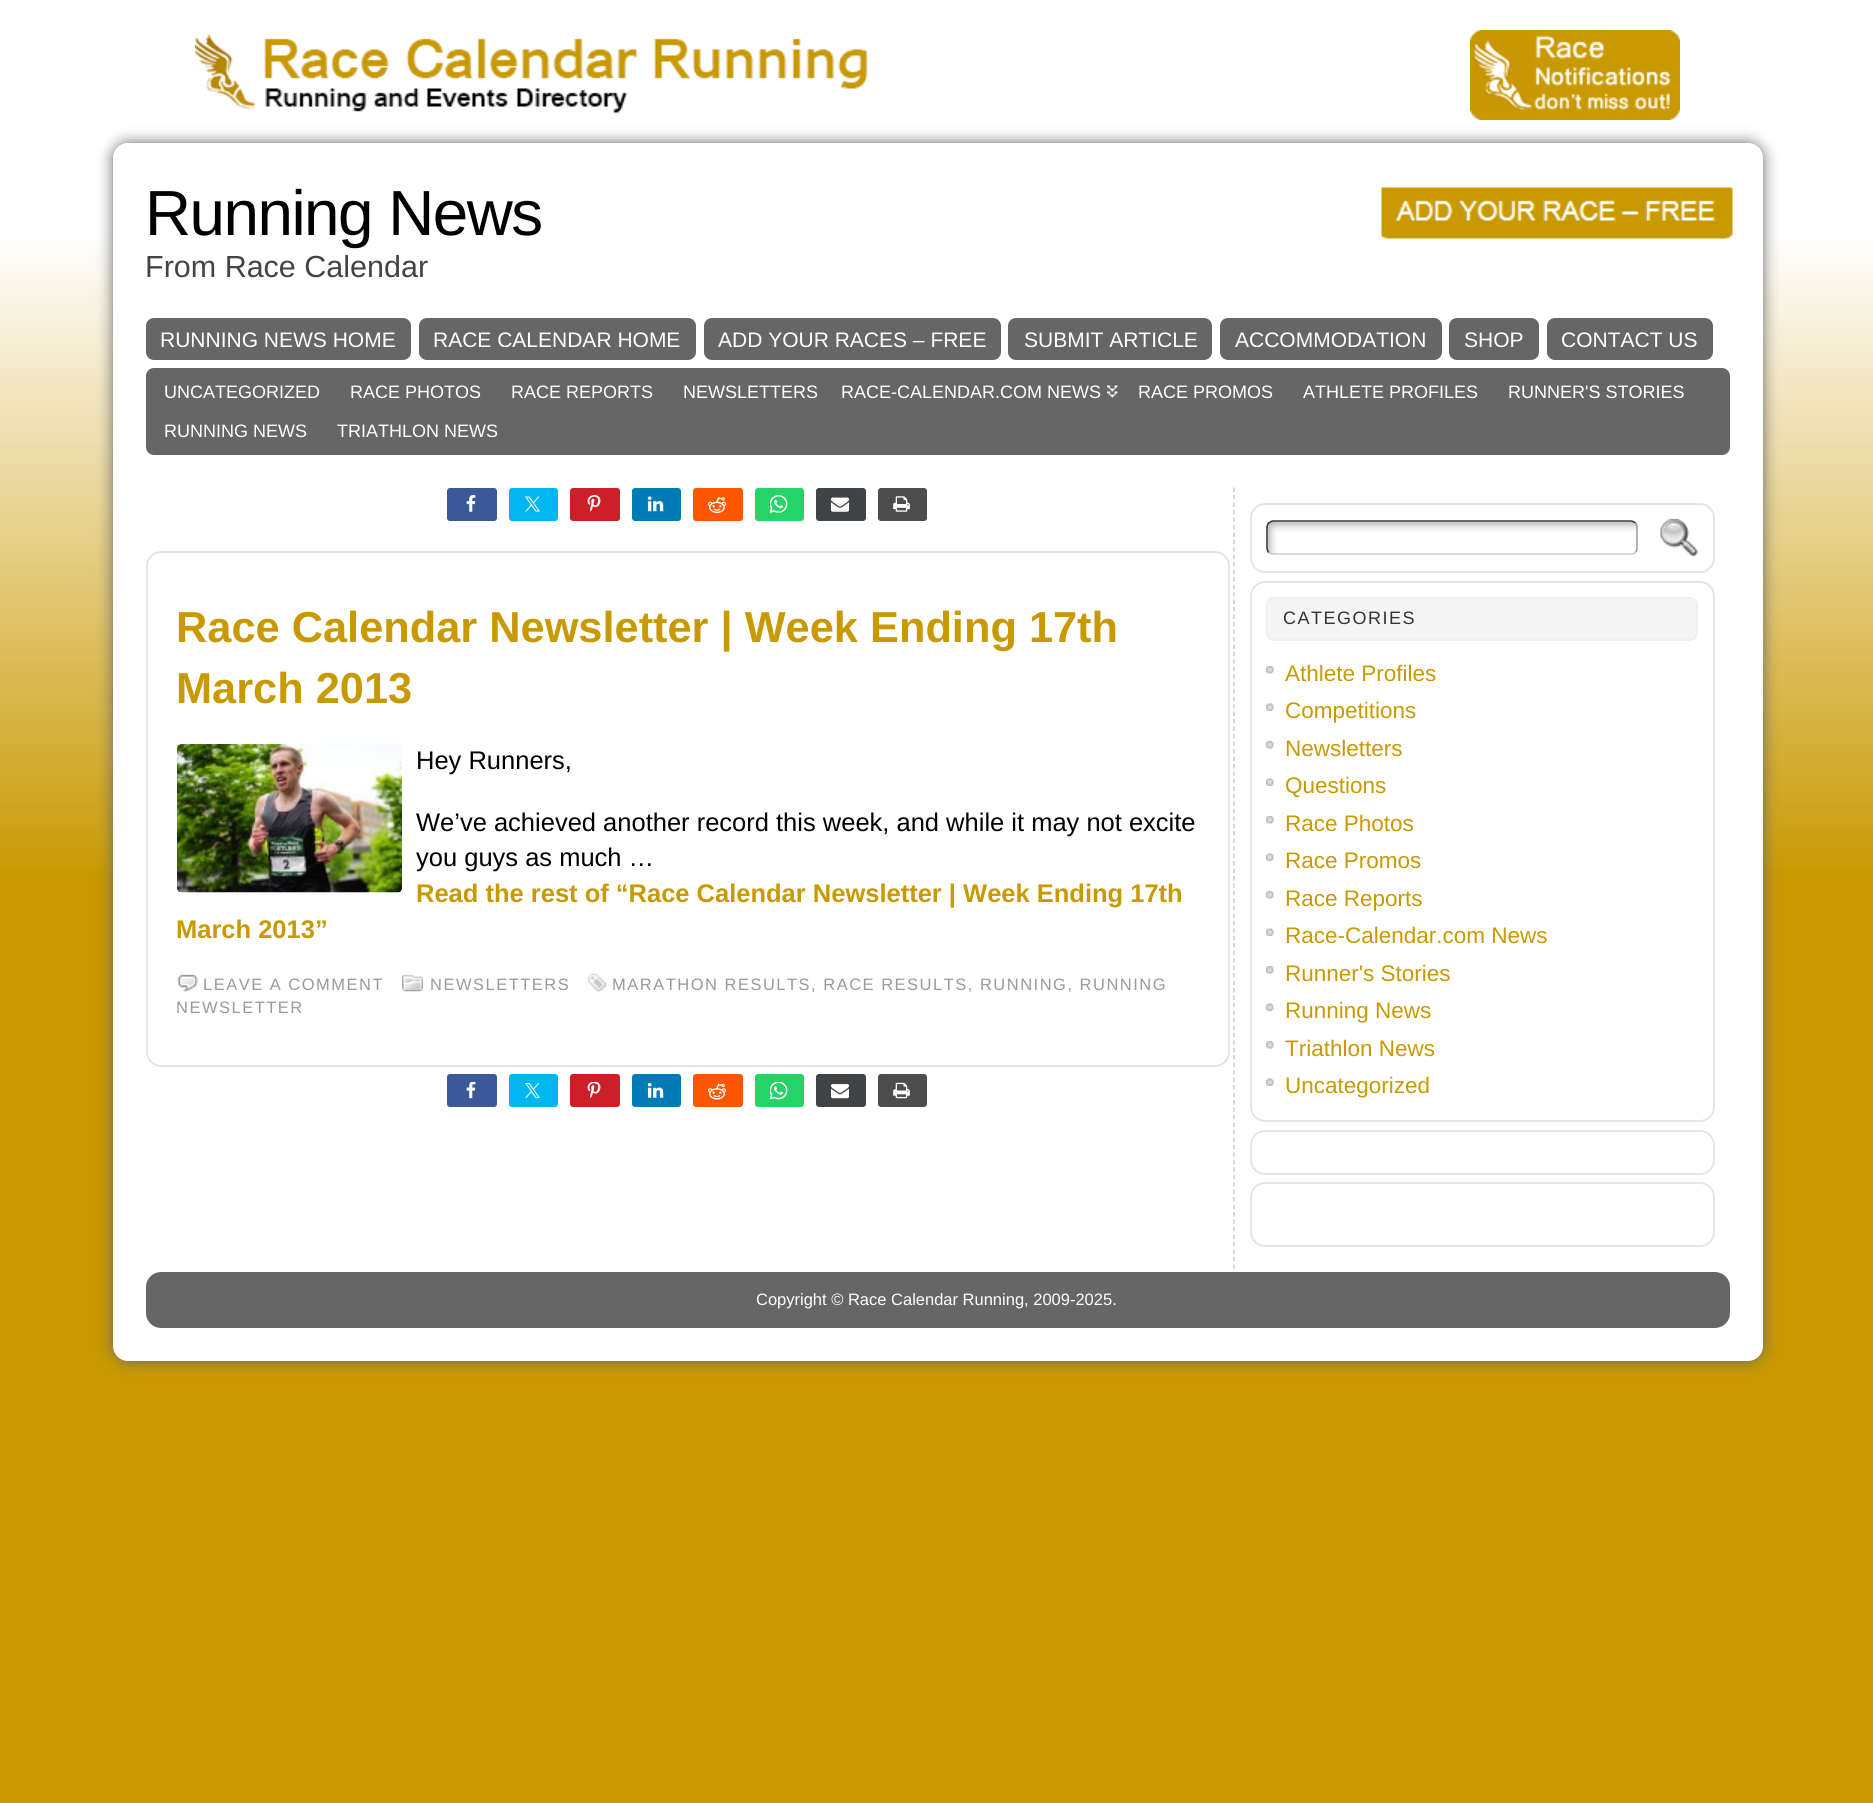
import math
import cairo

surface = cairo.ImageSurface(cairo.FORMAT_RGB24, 1873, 1803)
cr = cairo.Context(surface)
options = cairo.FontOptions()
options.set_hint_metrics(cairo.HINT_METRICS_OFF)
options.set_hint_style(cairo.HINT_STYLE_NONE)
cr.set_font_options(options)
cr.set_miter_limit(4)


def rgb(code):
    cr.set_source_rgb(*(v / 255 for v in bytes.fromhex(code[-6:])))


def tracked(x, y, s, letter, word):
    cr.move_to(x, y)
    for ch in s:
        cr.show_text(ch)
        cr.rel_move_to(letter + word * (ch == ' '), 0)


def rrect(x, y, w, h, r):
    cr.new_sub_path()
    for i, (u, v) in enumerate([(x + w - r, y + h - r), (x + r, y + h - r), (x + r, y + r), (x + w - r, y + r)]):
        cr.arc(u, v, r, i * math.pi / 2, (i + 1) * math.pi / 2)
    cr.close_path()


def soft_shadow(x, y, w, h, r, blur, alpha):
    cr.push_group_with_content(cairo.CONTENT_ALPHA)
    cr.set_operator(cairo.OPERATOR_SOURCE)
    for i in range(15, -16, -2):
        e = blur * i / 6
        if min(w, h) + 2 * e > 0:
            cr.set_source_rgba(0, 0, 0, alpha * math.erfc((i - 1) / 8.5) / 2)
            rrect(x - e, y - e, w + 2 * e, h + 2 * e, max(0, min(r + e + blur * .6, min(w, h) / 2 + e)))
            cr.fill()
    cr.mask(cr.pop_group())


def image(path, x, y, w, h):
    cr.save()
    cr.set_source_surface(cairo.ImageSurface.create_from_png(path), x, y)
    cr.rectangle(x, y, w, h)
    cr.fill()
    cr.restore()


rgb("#c99902")
cr.paint()
image("img/1.png", 0, 0, 1873, 871)
image("img/2.png", 195, 34, 673, 79)
image("img/3.png", 1470, 30, 210, 90)
rgb("#666666")
soft_shadow(113, 143, 1650, 1218, 15, 7.5, 1)
rgb("#ffffff")
rrect(113, 143, 1650, 1218, 15)
cr.fill()
image("img/4.png", 1381, 187, 352, 52)
rgb("#666666")
rrect(146, 318, 265, 42, 8)
cr.fill()
rrect(419, 318, 277, 42, 8)
cr.fill()
rrect(704, 318, 297, 42, 8)
cr.fill()
rrect(1008, 318, 204, 42, 8)
cr.fill()
rrect(1220, 318, 222, 42, 8)
cr.fill()
rrect(1449, 318, 90, 42, 8)
cr.fill()
rrect(1547, 318, 166, 42, 8)
cr.fill()
rrect(146, 368, 1584, 87, 8)
cr.fill()
image("img/5.png", 1107, 385, 11, 13)
rgb("#3b5998")
rrect(447, 488, 50, 33, 3)
cr.fill()
image("img/6.png", 466, 495, 10, 17)
rgb("#00b6f1")
rrect(509, 488, 49, 33, 3)
cr.fill()
image("img/7.png", 525, 496, 15, 16)
rgb("#cb2027")
rrect(570, 488, 50, 33, 3)
cr.fill()
image("img/8.png", 587, 495, 14, 17)
rgb("#007bb6")
rrect(632, 488, 49, 33, 3)
cr.fill()
image("img/9.png", 647, 496, 17, 16)
rgb("#ff5700")
rrect(693, 488, 50, 33, 3)
cr.fill()
image("img/10.png", 708, 497, 18, 16)
rgb("#25d366")
rrect(755, 488, 49, 33, 3)
cr.fill()
image("img/11.png", 770, 495, 18, 18)
rgb("#424345")
rrect(816, 488, 50, 33, 3)
cr.fill()
image("img/12.png", 831, 497, 18, 15)
rgb("#4d4d4d")
rrect(878, 488, 49, 33, 3)
cr.fill()
image("img/13.png", 893, 496, 17, 16)
rrect(147, 552, 1082, 514, 14)
rgb("#e5e5e5")
cr.stroke()
image("img/14.png", 177, 744, 225, 149)
image("img/15.png", 177, 974, 21, 18)
image("img/16.png", 402, 974, 21, 18)
image("img/17.png", 588, 973, 18, 19)
rgb("#3b5998")
rrect(447, 1074, 50, 33, 3)
cr.fill()
image("img/18.png", 466, 1082, 10, 17)
rgb("#00b6f1")
rrect(509, 1074, 49, 33, 3)
cr.fill()
image("img/19.png", 525, 1083, 15, 15)
rgb("#cb2027")
rrect(570, 1074, 50, 33, 3)
cr.fill()
image("img/20.png", 587, 1082, 14, 17)
rgb("#007bb6")
rrect(632, 1074, 49, 33, 3)
cr.fill()
image("img/21.png", 647, 1083, 17, 15)
rgb("#ff5700")
rrect(693, 1074, 50, 33, 3)
cr.fill()
image("img/22.png", 708, 1083, 18, 17)
rgb("#25d366")
rrect(755, 1074, 49, 33, 3)
cr.fill()
image("img/23.png", 770, 1082, 18, 18)
rgb("#424345")
rrect(816, 1074, 50, 33, 3)
cr.fill()
image("img/24.png", 831, 1084, 18, 15)
rgb("#4d4d4d")
rrect(878, 1074, 49, 33, 3)
cr.fill()
image("img/25.png", 893, 1082, 17, 17)
cr.new_path()
cr.move_to(1234, 487.5)
cr.line_to(1234, 1269)
rgb("#cccccc")
cr.set_line_width(1.5)
cr.set_dash([4.5, 2.97])
cr.stroke()
rrect(1251, 504, 463, 68, 14)
rgb("#e5e5e5")
cr.set_line_width(2)
cr.set_dash([])
cr.stroke()
image("img/26.png", 1267, 522, 371, 33)
cr.new_path()
cr.move_to(1635.5, 523)
cr.curve_to(1636.5, 524.5, 1637, 526, 1637, 528)
cr.line_to(1637, 547.5)
cr.curve_to(1637, 549.5, 1636.5, 551, 1635.5, 552.5)
rgb("#999999")
cr.set_line_width(1.5)
cr.stroke()
cr.new_path()
cr.move_to(1635.5, 552.5)
cr.curve_to(1634, 553.5, 1632.5, 554, 1630.5, 554)
cr.line_to(1273.5, 554)
cr.curve_to(1271.5, 554, 1270, 553.5, 1268.5, 552.5)
rgb("#cccccc")
cr.stroke()
cr.new_path()
cr.move_to(1268.5, 552.5)
cr.curve_to(1267.5, 551, 1267, 549.5, 1267, 547.5)
cr.line_to(1267, 528)
cr.curve_to(1267, 526, 1267.5, 524.5, 1268.5, 523)
cr.curve_to(1270, 522, 1271.5, 521, 1273.5, 521)
cr.line_to(1630.5, 521)
cr.curve_to(1632.5, 521, 1634, 522, 1635.5, 523)
rgb("#333333")
cr.stroke()
image("img/27.png", 1660, 519, 38, 38)
rrect(1251, 582, 463, 539, 14)
rgb("#e5e5e5")
cr.set_line_width(2)
cr.stroke()
rgb("#f5f5f5")
rrect(1267, 598, 430, 42, 7)
cr.fill_preserve()
rgb("#f0f0f0")
cr.stroke()
image("img/28.png", 1266, 666, 8, 8)
image("img/29.png", 1266, 703, 8, 8)
image("img/28.png", 1266, 741, 8, 8)
image("img/29.png", 1266, 778, 8, 8)
image("img/28.png", 1266, 816, 8, 8)
image("img/29.png", 1266, 853, 8, 8)
image("img/28.png", 1266, 891, 8, 8)
image("img/29.png", 1266, 928, 8, 8)
image("img/28.png", 1266, 966, 8, 8)
image("img/29.png", 1266, 1003, 8, 8)
image("img/28.png", 1266, 1041, 8, 8)
image("img/29.png", 1266, 1078, 8, 8)
rrect(1251, 1131, 463, 43, 14)
rgb("#e5e5e5")
cr.stroke()
rrect(1251, 1183, 463, 63, 14)
cr.stroke()
rgb("#666666")
rrect(147, 1273, 1582, 54, 14)
cr.fill_preserve()
cr.stroke()
cr.select_font_face("Liberation Sans")
cr.set_font_size(63.75)
rgb("#000000")
tracked(145, 235, "Running News", -1.5, 0)
cr.set_font_size(30.5)
rgb("#444444")
cr.move_to(145, 277)
cr.show_text("From Race Calendar")
cr.set_font_size(21)
rgb("#ffffff")
for x, y, s in [
    (160, 347, "RUNNING NEWS HOME"),
    (433, 347, "RACE CALENDAR HOME"),
    (718, 347, "ADD YOUR RACES – FREE"),
    (1024, 347, "SUBMIT ARTICLE"),
    (1235, 347, "ACCOMMODATION"),
    (1464, 347, "SHOP"),
    (1561, 347, "CONTACT US"),
]:
    cr.move_to(x, y)
    cr.show_text(s)
cr.set_font_size(18)
for x, y, s in [
    (164, 398, "UNCATEGORIZED"),
    (350, 398, "RACE PHOTOS"),
    (511, 398, "RACE REPORTS"),
    (683, 398, "NEWSLETTERS"),
    (841, 398, "RACE-CALENDAR.COM NEWS"),
    (1138, 398, "RACE PROMOS"),
    (1303, 398, "ATHLETE PROFILES"),
    (1508, 398, "RUNNER'S STORIES"),
    (164, 437, "RUNNING NEWS"),
    (337, 437, "TRIATHLON NEWS"),
]:
    cr.move_to(x, y)
    cr.show_text(s)
cr.select_font_face("Liberation Sans", cairo.FONT_SLANT_NORMAL, cairo.FONT_WEIGHT_BOLD)
cr.set_font_size(43.35)
rgb("#c99902")
cr.move_to(176, 642)
cr.show_text("Race Calendar Newsletter | Week Ending 17th")
cr.move_to(176, 703)
cr.show_text("March 2013")
cr.select_font_face("Liberation Sans")
cr.set_font_size(25.5)
rgb("#000000")
for x, y, s in [
    (416, 769, "Hey Runners,"),
    (416, 831, "We’ve achieved another record this week, and while it may not excite"),
    (416, 866, "you guys as much …"),
]:
    cr.move_to(x, y)
    cr.show_text(s)
cr.select_font_face("Liberation Sans", cairo.FONT_SLANT_NORMAL, cairo.FONT_WEIGHT_BOLD)
rgb("#c99902")
cr.move_to(416, 902)
cr.show_text("Read the rest of “Race Calendar Newsletter | Week Ending 17th")
cr.move_to(176, 938)
cr.show_text("March 2013”")
cr.select_font_face("Liberation Sans")
cr.set_font_size(16.5)
rgb("#999999")
for x, y, s in [
    (203, 990, "LEAVE A COMMENT"),
    (430, 990, "NEWSLETTERS"),
    (612, 990, "MARATHON RESULTS, RACE RESULTS, RUNNING, RUNNING"),
    (176, 1013, "NEWSLETTER"),
]:
    tracked(x, y, s, 1.5, 0)
cr.set_font_size(18)
rgb("#333333")
tracked(1283, 624, "CATEGORIES", 1.5, 0)
cr.set_font_size(22.5)
rgb("#c99902")
for x, y, s in [
    (1285, 681, "Athlete Profiles"),
    (1285, 718, "Competitions"),
    (1285, 756, "Newsletters"),
    (1285, 793, "Questions"),
    (1285, 831, "Race Photos"),
    (1285, 868, "Race Promos"),
    (1285, 906, "Race Reports"),
    (1285, 943, "Race-Calendar.com News"),
    (1285, 981, "Runner's Stories"),
    (1285, 1018, "Running News"),
    (1285, 1056, "Triathlon News"),
    (1285, 1093, "Uncategorized"),
]:
    cr.move_to(x, y)
    cr.show_text(s)
cr.set_font_size(16.5)
rgb("#ffffff")
cr.move_to(756, 1305)
cr.show_text("Copyright © Race Calendar Running, 2009-2025.")
surface.write_to_png("page.png")
